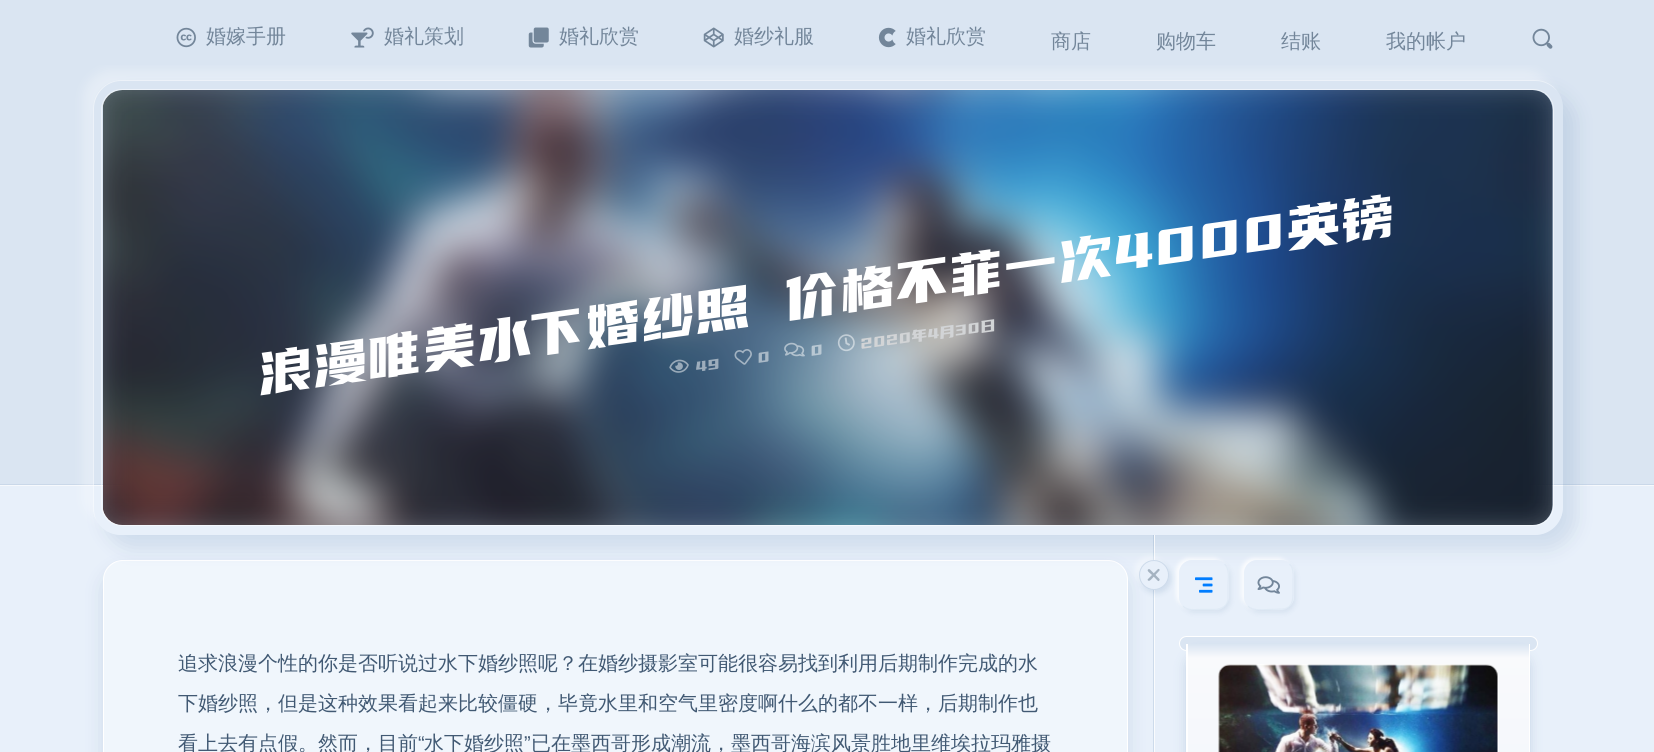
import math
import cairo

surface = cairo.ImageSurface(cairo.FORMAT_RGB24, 1654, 752)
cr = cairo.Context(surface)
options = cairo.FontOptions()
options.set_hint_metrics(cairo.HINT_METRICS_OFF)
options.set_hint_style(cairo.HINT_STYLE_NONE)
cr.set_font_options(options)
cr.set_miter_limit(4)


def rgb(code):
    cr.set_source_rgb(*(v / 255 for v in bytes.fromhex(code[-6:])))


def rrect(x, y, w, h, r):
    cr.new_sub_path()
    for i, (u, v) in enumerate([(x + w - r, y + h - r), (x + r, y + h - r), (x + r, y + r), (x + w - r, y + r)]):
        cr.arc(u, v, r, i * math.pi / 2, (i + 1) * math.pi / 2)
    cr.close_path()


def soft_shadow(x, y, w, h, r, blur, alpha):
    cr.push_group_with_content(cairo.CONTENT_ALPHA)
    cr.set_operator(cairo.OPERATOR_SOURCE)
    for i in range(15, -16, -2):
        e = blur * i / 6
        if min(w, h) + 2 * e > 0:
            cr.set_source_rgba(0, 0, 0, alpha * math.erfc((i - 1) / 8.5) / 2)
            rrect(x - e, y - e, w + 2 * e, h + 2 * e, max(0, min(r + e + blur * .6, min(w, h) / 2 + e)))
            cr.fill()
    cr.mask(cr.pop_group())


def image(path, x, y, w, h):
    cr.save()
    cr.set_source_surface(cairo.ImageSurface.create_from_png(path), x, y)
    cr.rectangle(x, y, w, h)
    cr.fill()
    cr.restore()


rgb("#dae5f2")
cr.paint()
image("img/1.png", 176, 27, 20, 21)
image("img/2.png", 351, 27, 23, 21)
image("img/3.png", 528, 27, 21, 21)
image("img/4.png", 703, 27, 21, 21)
image("img/5.png", 878, 27, 18, 21)
image("img/6.png", 1532, 28, 21, 21)
for x, y, w, h, color in [
    (0, 484, 1654, 1, "#cad8e9"),
    (0, 486, 1654, 266, "#e8f0fa"),
    (0, 485, 1654, 1, "#f6f9fd"),
]:
    rgb(color)
    cr.rectangle(x, y, w, h)
    cr.fill()
image("img/7.png", 103, 90, 1450, 435)
rgb("#366498")
soft_shadow(103, 570, 1025, 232, 20, 10, 0.15)
rgb("#f0f6fc")
rrect(103.5, 560.5, 1024, 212, 19.5)
cr.fill_preserve()
rgb("#ffffff")
cr.set_line_width(1)
cr.stroke()
cr.save()
cr.set_fill_rule(cairo.FILL_RULE_EVEN_ODD)
cr.new_path()
cr.move_to(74, 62)
cr.line_to(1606, 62)
cr.line_to(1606, 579)
cr.line_to(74, 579)
cr.close_path()
cr.move_to(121, 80)
cr.line_to(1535, 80)
cr.curve_to(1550.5, 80, 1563, 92.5, 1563, 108)
cr.line_to(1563, 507)
cr.curve_to(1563, 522.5, 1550.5, 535, 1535, 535)
cr.line_to(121, 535)
cr.curve_to(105.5, 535, 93, 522.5, 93, 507)
cr.line_to(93, 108)
cr.curve_to(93, 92.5, 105.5, 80, 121, 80)
cr.close_path()
cr.clip()
rgb("#366498")
soft_shadow(105, 93, 1470, 455, 28, 10, 0.15)
cr.restore()
cr.save()
cr.rectangle(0, 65, 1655, 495)
cr.clip()
cr.set_fill_rule(cairo.FILL_RULE_EVEN_ODD)
cr.new_path()
cr.move_to(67, 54)
cr.line_to(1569, 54)
cr.line_to(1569, 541)
cr.line_to(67, 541)
cr.close_path()
cr.move_to(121, 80)
cr.line_to(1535, 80)
cr.curve_to(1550.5, 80, 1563, 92.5, 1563, 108)
cr.line_to(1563, 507)
cr.curve_to(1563, 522.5, 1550.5, 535, 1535, 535)
cr.line_to(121, 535)
cr.curve_to(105.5, 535, 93, 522.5, 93, 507)
cr.line_to(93, 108)
cr.curve_to(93, 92.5, 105.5, 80, 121, 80)
cr.close_path()
cr.clip()
rgb("#ffffff")
soft_shadow(83, 70, 1470, 455, 28, 5, 0.3)
cr.restore()
cr.set_source_rgba(1, 1, 1, 0.5)
cr.new_path()
cr.move_to(121, 81)
cr.line_to(1536, 81)
cr.curve_to(1545, 81, 1553, 86, 1558, 92)
cr.curve_to(1553, 85, 1545, 80, 1535, 80)
cr.line_to(121, 80)
cr.curve_to(106, 80, 93, 93, 93, 108)
cr.line_to(93, 507)
cr.curve_to(93, 512, 94, 517, 97, 521)
cr.curve_to(95, 518, 94, 513, 94, 509)
cr.line_to(94, 109)
cr.curve_to(94, 94, 106, 81, 121, 81)
cr.close_path()
cr.fill()
rrect(101.5, 89.5, 1452, 436, 20.5)
cr.stroke()
cr.set_source_rgba(0.212, 0.392, 0.596, 0.2)
rrect(103, 90, 1450, 435, 20)
cr.fill()
cr.set_source_rgba(1, 1, 1, 0.8)
cr.rectangle(1154, 535, 1, 217)
cr.fill()
cr.set_source_rgba(0.212, 0.392, 0.596, 0.15)
cr.rectangle(1153, 535, 1, 217)
cr.fill()
rgb("#366498")
soft_shadow(1141, 563, 30, 30, 15, 3, 0.15)
rgb("#ffffff")
soft_shadow(1135, 556, 30, 30, 15, 2.5, 0.35)
rgb("#e8f0fa")
cr.arc(1154, 575, 15, 0, 2 * math.pi)
cr.fill()
cr.arc(1154, 575, 14.5, 0, 2 * math.pi)
cr.set_source_rgba(0.212, 0.392, 0.596, 0.15)
cr.stroke()
rgb("#a5b3c1")
cr.new_path()
cr.move_to(1150, 569.5)
cr.line_to(1159.5, 579)
cr.curve_to(1160, 580, 1159, 581.5, 1158, 581)
cr.line_to(1151.5, 574.5)
cr.curve_to(1150.5, 573.5, 1146.5, 571, 1148, 569.5)
cr.curve_to(1148.5, 569, 1149.5, 569, 1150, 569.5)
cr.close_path()
cr.fill()
cr.new_path()
cr.move_to(1148, 579)
cr.line_to(1158, 569)
cr.curve_to(1159, 568.5, 1160, 569.5, 1159.5, 570.5)
cr.line_to(1153, 577.5)
cr.curve_to(1152.5, 578, 1149.5, 582, 1148, 580.5)
cr.curve_to(1147.5, 580, 1147.5, 579.5, 1148, 579)
cr.close_path()
cr.fill()
cr.save()
cr.set_fill_rule(cairo.FILL_RULE_EVEN_ODD)
cr.new_path()
cr.move_to(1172, 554)
cr.line_to(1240, 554)
cr.line_to(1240, 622)
cr.line_to(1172, 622)
cr.close_path()
cr.move_to(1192, 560)
cr.line_to(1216, 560)
cr.curve_to(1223, 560, 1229, 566, 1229, 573)
cr.line_to(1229, 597)
cr.curve_to(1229, 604, 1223, 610, 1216, 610)
cr.line_to(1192, 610)
cr.curve_to(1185, 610, 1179, 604, 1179, 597)
cr.line_to(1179, 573)
cr.curve_to(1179, 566, 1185, 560, 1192, 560)
cr.close_path()
cr.clip()
rgb("#366498")
soft_shadow(1181, 563, 50, 50, 13, 2.5, 0.1)
cr.restore()
cr.save()
cr.set_fill_rule(cairo.FILL_RULE_EVEN_ODD)
cr.new_path()
cr.move_to(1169, 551)
cr.line_to(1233, 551)
cr.line_to(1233, 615)
cr.line_to(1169, 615)
cr.close_path()
cr.move_to(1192, 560)
cr.line_to(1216, 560)
cr.curve_to(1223, 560, 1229, 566, 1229, 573)
cr.line_to(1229, 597)
cr.curve_to(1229, 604, 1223, 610, 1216, 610)
cr.line_to(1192, 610)
cr.curve_to(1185, 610, 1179, 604, 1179, 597)
cr.line_to(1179, 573)
cr.curve_to(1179, 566, 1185, 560, 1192, 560)
cr.close_path()
cr.clip()
rgb("#ffffff")
soft_shadow(1176, 558, 50, 50, 13, 2, 0.8)
cr.restore()
cr.new_path()
cr.move_to(1224.5, 564)
cr.curve_to(1230, 569.5, 1228, 578.5, 1228, 585)
cr.line_to(1228, 600)
cr.curve_to(1226, 608, 1219.5, 609.5, 1212, 609.5)
cr.line_to(1199.5, 609.5)
cr.curve_to(1193.5, 609.5, 1187.5, 610.5, 1183, 606)
cr.set_source_rgba(0.212, 0.392, 0.596, 0.05)
cr.set_line_width(1.2)
cr.stroke()
image("img/12.png", 1195, 577, 18, 16)
cr.save()
cr.set_fill_rule(cairo.FILL_RULE_EVEN_ODD)
cr.new_path()
cr.move_to(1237, 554)
cr.line_to(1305, 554)
cr.line_to(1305, 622)
cr.line_to(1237, 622)
cr.close_path()
cr.move_to(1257, 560)
cr.line_to(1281, 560)
cr.curve_to(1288, 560, 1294, 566, 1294, 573)
cr.line_to(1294, 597)
cr.curve_to(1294, 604, 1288, 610, 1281, 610)
cr.line_to(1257, 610)
cr.curve_to(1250, 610, 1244, 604, 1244, 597)
cr.line_to(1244, 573)
cr.curve_to(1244, 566, 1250, 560, 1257, 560)
cr.close_path()
cr.clip()
rgb("#366498")
soft_shadow(1246, 563, 50, 50, 13, 2.5, 0.1)
cr.restore()
cr.save()
cr.set_fill_rule(cairo.FILL_RULE_EVEN_ODD)
cr.new_path()
cr.move_to(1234, 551)
cr.line_to(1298, 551)
cr.line_to(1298, 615)
cr.line_to(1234, 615)
cr.close_path()
cr.move_to(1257, 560)
cr.line_to(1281, 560)
cr.curve_to(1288, 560, 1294, 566, 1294, 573)
cr.line_to(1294, 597)
cr.curve_to(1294, 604, 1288, 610, 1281, 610)
cr.line_to(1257, 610)
cr.curve_to(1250, 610, 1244, 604, 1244, 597)
cr.line_to(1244, 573)
cr.curve_to(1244, 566, 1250, 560, 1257, 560)
cr.close_path()
cr.clip()
rgb("#ffffff")
soft_shadow(1241, 558, 50, 50, 13, 2, 0.8)
cr.restore()
cr.new_path()
cr.move_to(1289.5, 564)
cr.curve_to(1294, 568.5, 1293, 575, 1293, 581)
cr.line_to(1293, 593.5)
cr.curve_to(1293, 600.5, 1292, 607.5, 1283.5, 609)
cr.line_to(1269, 609.5)
cr.curve_to(1262, 609.5, 1253, 611, 1248, 606)
cr.stroke()
image("img/13.png", 1257, 576, 23, 18)
rgb("#dae5f2")
rrect(1179.5, 636.5, 358, 14, 7)
cr.fill_preserve()
rgb("#ffffff")
cr.set_line_width(1)
cr.stroke()
rgb("#366498")
soft_shadow(1186, 654, 344, 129, 13, 6, 0.2)
gradient = cairo.LinearGradient(1358, 644, 1358, 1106)
gradient.add_color_stop_rgba(0, 0.855, 0.898, 0.949, 1)
gradient.add_color_stop_rgba(0.03, 0.976, 0.98, 0.988, 1)
gradient.add_color_stop_rgba(0.96, 0.91, 0.941, 0.98, 1)
gradient.add_color_stop_rgba(1, 0.855, 0.898, 0.949, 1)
cr.set_source(gradient)
cr.rectangle(1188, 644, 341, 108)
cr.fill()
rgb("#ffffff")
cr.set_fill_rule(cairo.FILL_RULE_EVEN_ODD)
cr.new_path()
cr.move_to(1186, 644)
cr.line_to(1530, 644)
cr.line_to(1530, 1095)
cr.curve_to(1530, 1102, 1524, 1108, 1518, 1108)
cr.line_to(1199, 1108)
cr.curve_to(1192, 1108, 1186, 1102, 1186, 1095)
cr.close_path()
cr.move_to(1188, 644)
cr.line_to(1529, 644)
cr.line_to(1529, 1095)
cr.curve_to(1529, 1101, 1524, 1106, 1518, 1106)
cr.line_to(1199, 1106)
cr.curve_to(1193, 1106, 1188, 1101, 1188, 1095)
cr.close_path()
cr.fill()
rrect(1218.5, 664.5, 280, 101, 12.5)
cr.stroke()
image("img/14.png", 1218, 664, 280, 88)
cr.select_font_face("WenQuanYi Zen Hei Medium")
cr.set_font_size(20)
rgb("#73869a")
for x, y, s in [
    (206, 43, "婚嫁手册"),
    (384, 43, "婚礼策划"),
    (559, 43, "婚礼欣赏"),
    (734, 43, "婚纱礼服"),
    (906, 43, "婚礼欣赏"),
    (1051, 48, "商店"),
    (1156, 48, "购物车"),
    (1281, 48, "结账"),
    (1386, 48, "我的帐户"),
]:
    cr.move_to(x, y)
    cr.show_text(s)
cr.select_font_face("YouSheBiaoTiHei")
cr.set_font_size(60)
rgb("#ffffff")
cr.save()
cr.translate(260, 395)
cr.rotate(-8 * math.pi / 180)
cr.move_to(0, 0)
cr.show_text("浪漫唯美水下婚纱照 价格不菲一次4000英镑")
cr.restore()
image("img/8.png", 669, 359, 20, 14)
cr.set_font_size(17.5)
rgb("#9dadbc")
cr.save()
cr.translate(696, 373)
cr.rotate(-8 * math.pi / 180)
cr.move_to(0, 0)
cr.show_text("49")
cr.restore()
image("img/9.png", 734, 349, 18, 16)
rgb("#a9b9c7")
cr.save()
cr.translate(758, 364)
cr.rotate(-8 * math.pi / 180)
cr.move_to(0, 0)
cr.show_text("0")
cr.restore()
image("img/10.png", 784, 342, 21, 15)
rgb("#b9c8d3")
cr.save()
cr.translate(811, 357)
cr.rotate(-8 * math.pi / 180)
cr.move_to(0, 0)
cr.show_text("0")
cr.restore()
image("img/11.png", 837, 334, 18, 18)
rgb("#d2d4d6")
cr.save()
cr.translate(861, 350)
cr.rotate(-8 * math.pi / 180)
cr.move_to(0, 0)
cr.show_text("2020年4月30日")
cr.restore()
cr.select_font_face("WenQuanYi Zen Hei Medium")
cr.set_font_size(20)
rgb("#415973")
for x, y, s in [
    (178, 670, "追求浪漫个性的你是否听说过水下婚纱照呢？在婚纱摄影室可能很容易找到利用后期制作完成的水"),
    (178, 710, "下婚纱照，但是这种效果看起来比较僵硬，毕竟水里和空气里密度啊什么的都不一样，后期制作也"),
    (178, 750, "看上去有点假。然而，目前"),
]:
    cr.move_to(x, y)
    cr.show_text(s)
cr.select_font_face("Liberation Sans")
cr.move_to(418, 750)
cr.show_text("“")
cr.select_font_face("WenQuanYi Zen Hei Medium")
cr.move_to(424, 750)
cr.show_text("水下婚纱照")
cr.select_font_face("Liberation Sans")
cr.move_to(524, 750)
cr.show_text("”")
cr.select_font_face("WenQuanYi Zen Hei Medium")
cr.move_to(531, 750)
cr.show_text("已在墨西哥形成潮流，墨西哥海滨风景胜地里维埃拉玛雅摄")
surface.write_to_png("page.png")
